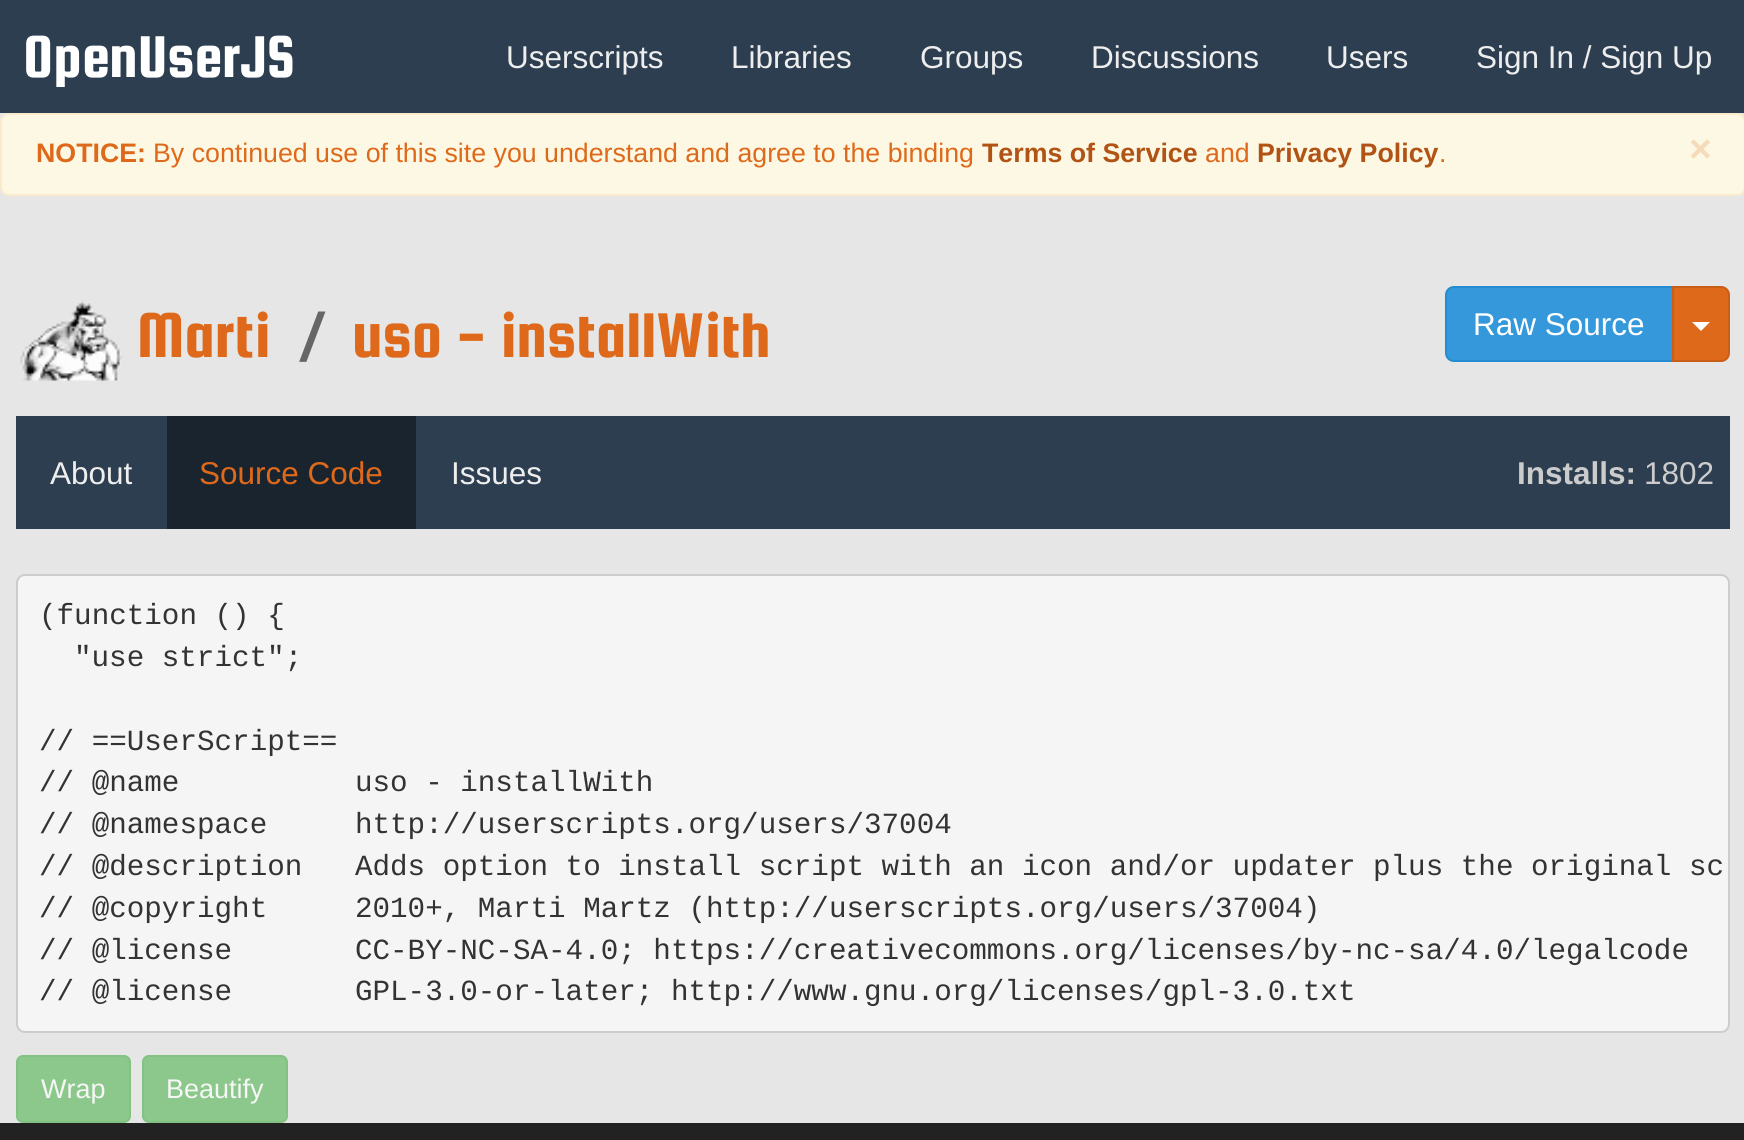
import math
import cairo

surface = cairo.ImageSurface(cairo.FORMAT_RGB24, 1744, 1140)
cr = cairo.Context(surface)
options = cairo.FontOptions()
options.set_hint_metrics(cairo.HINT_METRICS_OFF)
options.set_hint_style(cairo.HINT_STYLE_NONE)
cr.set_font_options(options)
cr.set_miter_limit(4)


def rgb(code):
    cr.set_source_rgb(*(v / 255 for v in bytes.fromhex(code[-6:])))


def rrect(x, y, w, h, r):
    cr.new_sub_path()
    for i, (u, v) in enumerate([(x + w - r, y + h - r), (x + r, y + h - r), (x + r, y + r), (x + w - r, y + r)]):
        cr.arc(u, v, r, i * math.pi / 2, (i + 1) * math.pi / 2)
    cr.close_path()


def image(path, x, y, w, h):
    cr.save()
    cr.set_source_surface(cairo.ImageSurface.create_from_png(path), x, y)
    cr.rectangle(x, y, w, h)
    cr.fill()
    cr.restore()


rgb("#e6e6e6")
cr.paint()
rgb("#2c3e50")
cr.rectangle(0, 0, 1744, 113)
cr.fill()
rgb("#fcf8e3")
rrect(1, 114, 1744, 81, 8)
cr.fill_preserve()
rgb("#faebcc")
cr.stroke()
image("img/1.png", 20, 301, 102, 80)
rgb("#3498db")
cr.new_path()
cr.move_to(1454, 287)
cr.line_to(1673, 287)
cr.line_to(1673, 361)
cr.line_to(1454, 361)
cr.curve_to(1449.5, 361, 1446, 357.5, 1446, 353)
cr.line_to(1446, 295)
cr.curve_to(1446, 290.5, 1449.5, 287, 1454, 287)
cr.close_path()
cr.fill_preserve()
rgb("#258cd1")
cr.stroke()
rgb("#df691a")
cr.new_path()
cr.move_to(1673, 287)
cr.line_to(1721, 287)
cr.curve_to(1725.5, 287, 1729, 290.5, 1729, 295)
cr.line_to(1729, 353)
cr.curve_to(1729, 357.5, 1725.5, 361, 1721, 361)
cr.line_to(1673, 361)
cr.close_path()
cr.fill_preserve()
rgb("#c85e17")
cr.stroke()
rgb("#ffffff")
cr.new_path()
cr.move_to(1692, 322)
cr.line_to(1710, 322)
cr.line_to(1701, 331)
cr.close_path()
cr.fill()
rgb("#2c3e50")
cr.rectangle(16, 416, 1714, 113)
cr.fill()
rgb("#1a242f")
cr.rectangle(167, 416, 249, 113)
cr.fill()
rgb("#f5f5f5")
rrect(17, 575, 1712, 457, 8)
cr.fill_preserve()
rgb("#cccccc")
cr.stroke()
rgb("#8cc88c")
rrect(17, 1056, 113, 66, 6)
cr.fill_preserve()
rgb("#82c282")
cr.stroke()
rgb("#8cc88c")
rrect(143, 1056, 144, 66, 6)
cr.fill_preserve()
rgb("#82c282")
cr.stroke()
rgb("#222222")
cr.rectangle(0, 1123, 1744, 17)
cr.fill()
cr.select_font_face("Squada One")
cr.set_font_size(63)
rgb("#ffffff")
cr.move_to(23, 77)
cr.show_text("OpenUserJS")
cr.select_font_face("Liberation Sans")
cr.set_font_size(31.5)
rgb("#eeeeee")
for x, y, s in [
    (506, 68, "Userscripts"),
    (731, 68, "Libraries"),
    (920, 68, "Groups"),
    (1091, 68, "Discussions"),
    (1326, 68, "Users"),
    (1476, 68, "Sign In / Sign Up"),
]:
    cr.move_to(x, y)
    cr.show_text(s)
cr.select_font_face("Liberation Sans", cairo.FONT_SLANT_NORMAL, cairo.FONT_WEIGHT_BOLD)
cr.set_font_size(26.75)
rgb("#df691a")
cr.move_to(36, 162)
cr.show_text("NOTICE:")
cr.select_font_face("Liberation Sans")
cr.move_to(153, 162)
cr.show_text("By continued use of this site you understand and agree to the binding")
cr.select_font_face("Liberation Sans", cairo.FONT_SLANT_NORMAL, cairo.FONT_WEIGHT_BOLD)
rgb("#b15315")
cr.move_to(982, 162)
cr.show_text("Terms of Service")
cr.select_font_face("Liberation Sans")
rgb("#df691a")
cr.move_to(1205, 162)
cr.show_text("and")
cr.select_font_face("Liberation Sans", cairo.FONT_SLANT_NORMAL, cairo.FONT_WEIGHT_BOLD)
rgb("#b15315")
cr.move_to(1257, 162)
cr.show_text("Privacy Policy")
cr.select_font_face("Liberation Sans")
rgb("#df691a")
cr.move_to(1439, 162)
cr.show_text(".")
cr.select_font_face("Liberation Sans", cairo.FONT_SLANT_NORMAL, cairo.FONT_WEIGHT_BOLD)
cr.set_font_size(39)
rgb("#f6dbbb")
cr.move_to(1689, 162)
cr.show_text("×")
cr.select_font_face("Squada One")
cr.set_font_size(67.5)
rgb("#df691a")
cr.move_to(137, 357)
cr.show_text("Marti")
rgb("#666666")
cr.move_to(302, 357)
cr.show_text("/")
rgb("#df691a")
cr.move_to(352, 357)
cr.show_text("uso - installWith")
cr.select_font_face("Liberation Sans")
cr.set_font_size(31.5)
rgb("#ffffff")
cr.move_to(1473, 335)
cr.show_text("Raw Source")
rgb("#eeeeee")
cr.move_to(50, 484)
cr.show_text("About")
rgb("#df691a")
cr.move_to(199, 484)
cr.show_text("Source Code")
rgb("#eeeeee")
cr.move_to(451, 484)
cr.show_text("Issues")
cr.select_font_face("Liberation Sans", cairo.FONT_SLANT_NORMAL, cairo.FONT_WEIGHT_BOLD)
rgb("#cccccc")
cr.move_to(1517, 484)
cr.show_text("Installs:")
cr.select_font_face("Liberation Sans")
cr.move_to(1644, 484)
cr.show_text("1802")
cr.select_font_face("Liberation Mono")
cr.set_font_size(29.25)
rgb("#333333")
for x, y, s in [
    (39, 624, "(function () {"),
    (74, 666, "\"use strict\";"),
    (39, 750, "// ==UserScript=="),
    (39, 791, "// @name          uso - installWith"),
    (39, 833, "// @namespace     http://userscripts.org/users/37004"),
    (39, 875, "// @description   Adds option to install script with an icon and/or updater plus the original sc"),
    (39, 917, "// @copyright     2010+, Marti Martz (http://userscripts.org/users/37004)"),
    (39, 959, "// @license       CC-BY-NC-SA-4.0; https://creativecommons.org/licenses/by-nc-sa/4.0/legalcode"),
    (39, 1000, "// @license       GPL-3.0-or-later; http://www.gnu.org/licenses/gpl-3.0.txt"),
]:
    cr.move_to(x, y)
    cr.show_text(s)
cr.select_font_face("Liberation Sans")
cr.set_font_size(27)
rgb("#f6f6f6")
cr.move_to(41, 1098)
cr.show_text("Wrap")
cr.move_to(166, 1098)
cr.show_text("Beautify")
surface.write_to_png("page.png")
